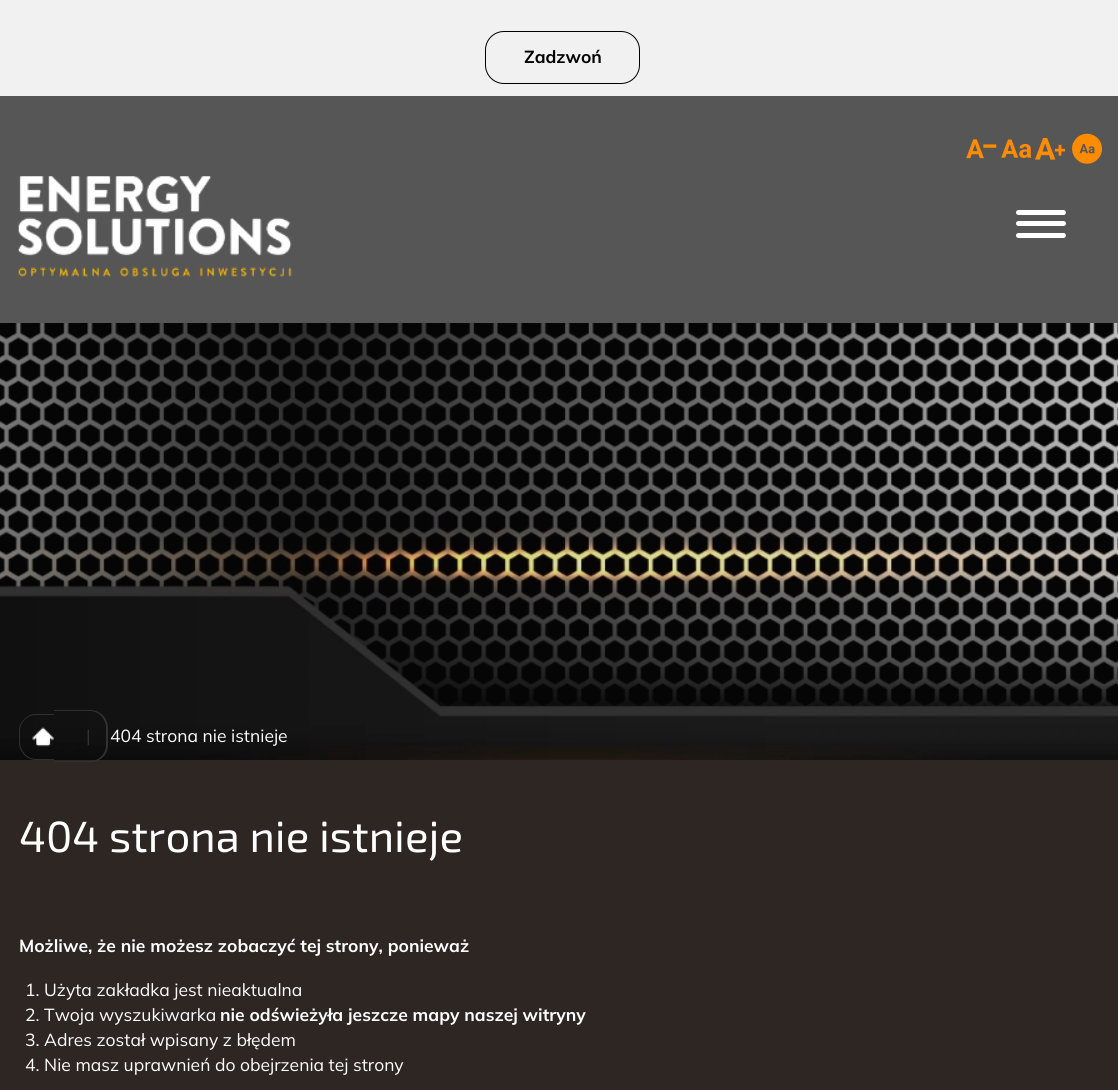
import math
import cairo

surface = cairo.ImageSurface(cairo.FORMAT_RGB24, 1118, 1090)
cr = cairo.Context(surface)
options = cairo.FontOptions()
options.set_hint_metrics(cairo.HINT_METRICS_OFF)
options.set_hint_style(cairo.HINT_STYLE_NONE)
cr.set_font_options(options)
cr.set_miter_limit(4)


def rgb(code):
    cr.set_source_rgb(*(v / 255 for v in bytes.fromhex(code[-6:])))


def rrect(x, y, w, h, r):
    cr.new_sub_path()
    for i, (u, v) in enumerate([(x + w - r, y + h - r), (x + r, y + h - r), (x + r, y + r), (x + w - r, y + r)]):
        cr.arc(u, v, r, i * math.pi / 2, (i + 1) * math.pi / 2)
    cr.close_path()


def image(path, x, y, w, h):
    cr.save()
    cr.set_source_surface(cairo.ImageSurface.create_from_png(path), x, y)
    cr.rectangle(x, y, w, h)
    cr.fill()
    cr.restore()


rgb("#2e2623")
cr.paint()
rgb("#f1f1f1")
cr.rectangle(0, 0, 1118, 96)
cr.fill()
rrect(485.5, 31.5, 154, 52, 18.5)
rgb("#000000")
cr.set_line_width(1)
cr.stroke()
rgb("#565656")
cr.rectangle(0, 96, 1118, 227)
cr.fill()
image("img/1.png", 966, 139, 31, 20)
image("img/2.png", 1001, 139, 31, 19)
image("img/3.png", 1035, 137, 31, 23)
image("img/4.png", 1072, 133, 30, 31)
image("img/5.png", 18, 176, 274, 101)
rgb("#ffffff")
rrect(1016, 210, 50, 5, 2.5)
cr.fill()
rrect(1016, 221, 50, 5, 2.5)
cr.fill()
rrect(1016, 233, 50, 5, 2.5)
cr.fill()
image("img/6.png", 0, 323, 1118, 437)
rgb("#313131")
cr.set_fill_rule(cairo.FILL_RULE_EVEN_ODD)
cr.new_path()
cr.move_to(36, 714)
cr.line_to(54, 714)
cr.line_to(54, 760)
cr.line_to(36, 760)
cr.curve_to(27, 760, 19, 752, 19, 742)
cr.line_to(19, 731)
cr.curve_to(19, 722, 27, 714, 36, 714)
cr.close_path()
cr.move_to(36, 715)
cr.line_to(54, 715)
cr.line_to(54, 759)
cr.line_to(36, 759)
cr.curve_to(27, 759, 20, 751, 20, 742)
cr.line_to(20, 731)
cr.curve_to(20, 722, 27, 715, 36, 715)
cr.close_path()
cr.fill()
cr.new_path()
cr.move_to(54, 710)
cr.line_to(90, 710)
cr.curve_to(100, 710, 108, 718, 108, 728)
cr.line_to(108, 745)
cr.curve_to(108, 755, 100, 762, 90, 762)
cr.line_to(54, 762)
cr.close_path()
cr.move_to(54, 711)
cr.line_to(90, 711)
cr.curve_to(99, 711, 106, 719, 106, 728)
cr.line_to(106, 745)
cr.curve_to(106, 754, 99, 761, 90, 761)
cr.line_to(54, 761)
cr.close_path()
cr.fill()
image("img/7.png", 32, 727, 22, 20)
cr.select_font_face("Mulish", cairo.FONT_SLANT_NORMAL, cairo.FONT_WEIGHT_BOLD)
cr.set_font_size(17.5)
rgb("#000000")
cr.move_to(524, 63)
cr.show_text("Zadzwoń")
cr.select_font_face("Mulish")
rgb("#313131")
cr.move_to(86, 742)
cr.show_text("|")
rgb("#ffffff")
cr.move_to(110, 742)
cr.show_text("404 strona nie istnieje")
cr.select_font_face("Exo 2")
cr.set_font_size(43.75)
cr.move_to(19, 852)
cr.show_text("404 strona nie istnieje")
cr.select_font_face("Mulish", cairo.FONT_SLANT_NORMAL, cairo.FONT_WEIGHT_BOLD)
cr.set_font_size(17.5)
cr.move_to(19, 952)
cr.show_text("Możliwe, że nie możesz zobaczyć tej strony, ponieważ")
cr.select_font_face("Mulish")
cr.move_to(25, 996)
cr.show_text("1. Użyta zakładka jest nieaktualna")
cr.move_to(25, 1021)
cr.show_text("2. Twoja wyszukiwarka")
cr.select_font_face("Mulish", cairo.FONT_SLANT_NORMAL, cairo.FONT_WEIGHT_BOLD)
cr.move_to(220, 1021)
cr.show_text("nie odświeżyła jeszcze mapy naszej witryny")
cr.select_font_face("Mulish")
cr.move_to(25, 1046)
cr.show_text("3. Adres został wpisany z błędem")
cr.move_to(25, 1071)
cr.show_text("4. Nie masz uprawnień do obejrzenia tej strony")
surface.write_to_png("page.png")
